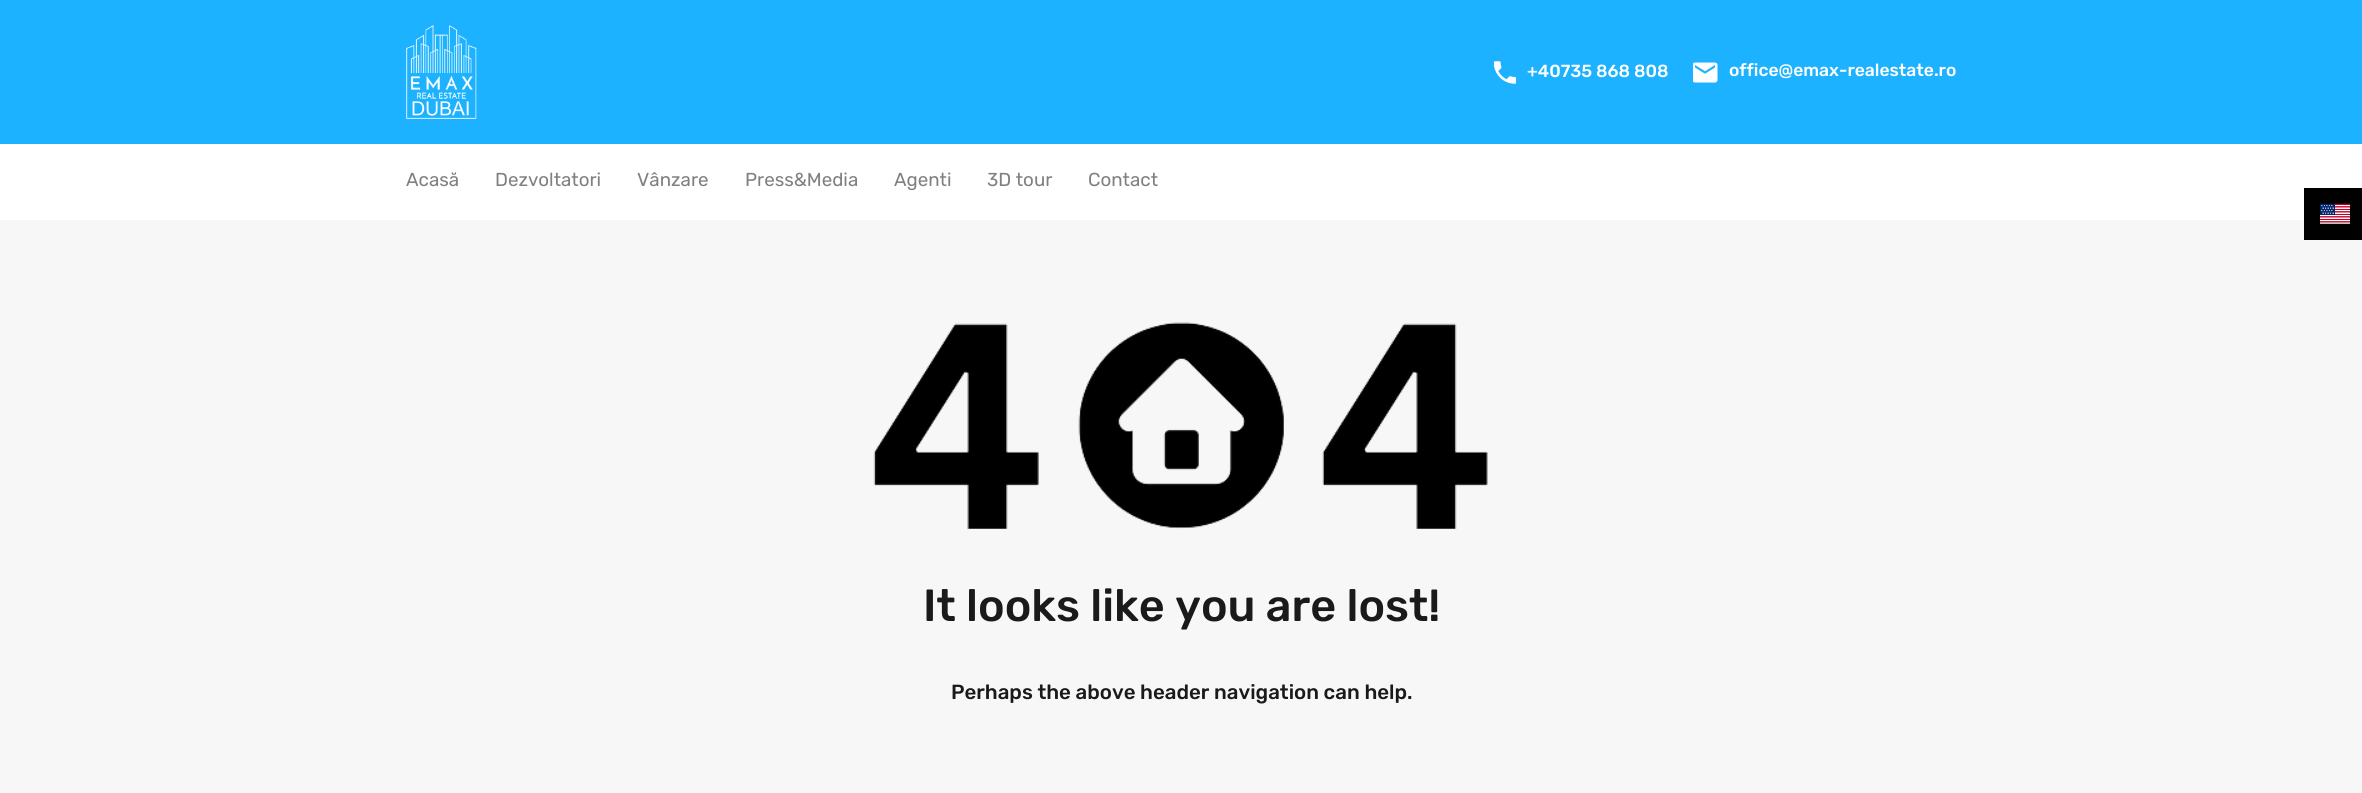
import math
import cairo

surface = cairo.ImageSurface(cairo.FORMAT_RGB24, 2362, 793)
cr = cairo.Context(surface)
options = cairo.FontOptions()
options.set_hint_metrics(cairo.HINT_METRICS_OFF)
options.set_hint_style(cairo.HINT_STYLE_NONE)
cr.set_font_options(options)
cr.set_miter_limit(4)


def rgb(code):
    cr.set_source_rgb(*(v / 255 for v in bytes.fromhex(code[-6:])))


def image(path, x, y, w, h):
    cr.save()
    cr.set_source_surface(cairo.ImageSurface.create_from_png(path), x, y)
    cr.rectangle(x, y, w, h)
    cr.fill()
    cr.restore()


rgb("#f7f7f7")
cr.paint()
rgb("#1cb2ff")
cr.rectangle(0, 0, 2362, 144)
cr.fill()
image("img/1.png", 406, 25, 71, 94)
image("img/2.png", 1494, 61, 22, 23)
image("img/3.png", 1693, 62, 25, 21)
rgb("#ffffff")
cr.rectangle(0, 144, 2362, 76)
cr.fill()
image("img/4.png", 873, 322, 615, 207)
rgb("#000000")
cr.rectangle(2304, 188, 58, 52)
cr.fill()
image("img/5.png", 2320, 203, 30, 21)
cr.select_font_face("Rubik Medium")
cr.set_font_size(17.5)
rgb("#ffffff")
cr.move_to(1527, 77)
cr.show_text("+40735 868 808")
cr.move_to(1729, 76)
cr.show_text("office@emax-realestate.ro")
cr.select_font_face("Rubik")
cr.set_font_size(18.75)
rgb("#808080")
for x, y, s in [
    (406, 186, "Acasă"),
    (495, 186, "Dezvoltatori"),
    (637, 186, "Vânzare"),
    (745, 186, "Press&Media"),
    (894, 186, "Agenti"),
    (987, 186, "3D tour"),
    (1088, 186, "Contact"),
]:
    cr.move_to(x, y)
    cr.show_text(s)
cr.select_font_face("Rubik Medium")
cr.set_font_size(45)
rgb("#1a1a1a")
cr.move_to(923, 621)
cr.show_text("It looks like you are lost!")
cr.set_font_size(20.45)
cr.move_to(951, 699)
cr.show_text("Perhaps the above header navigation can help.")
surface.write_to_png("page.png")
